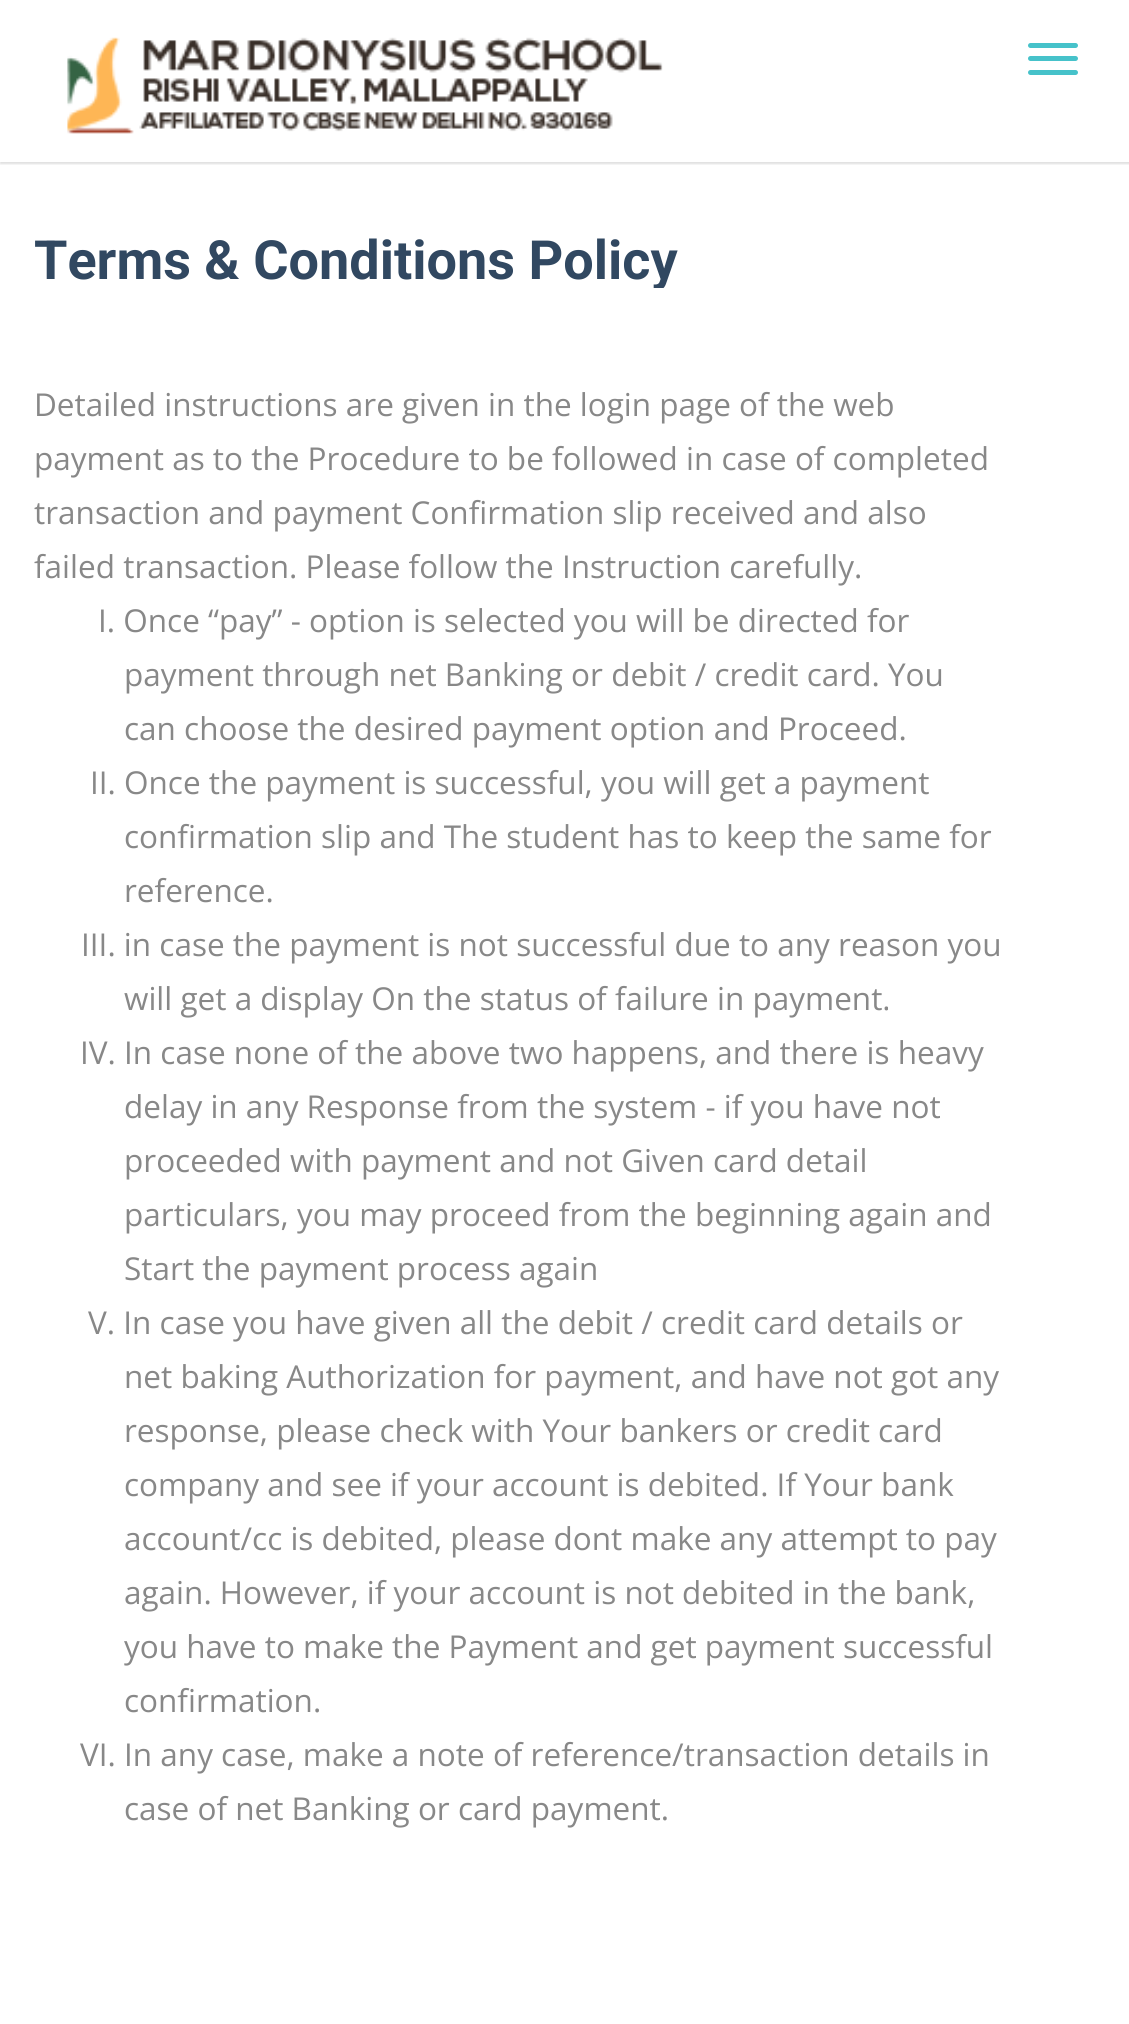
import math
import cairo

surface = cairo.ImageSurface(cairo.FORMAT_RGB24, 1129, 2024)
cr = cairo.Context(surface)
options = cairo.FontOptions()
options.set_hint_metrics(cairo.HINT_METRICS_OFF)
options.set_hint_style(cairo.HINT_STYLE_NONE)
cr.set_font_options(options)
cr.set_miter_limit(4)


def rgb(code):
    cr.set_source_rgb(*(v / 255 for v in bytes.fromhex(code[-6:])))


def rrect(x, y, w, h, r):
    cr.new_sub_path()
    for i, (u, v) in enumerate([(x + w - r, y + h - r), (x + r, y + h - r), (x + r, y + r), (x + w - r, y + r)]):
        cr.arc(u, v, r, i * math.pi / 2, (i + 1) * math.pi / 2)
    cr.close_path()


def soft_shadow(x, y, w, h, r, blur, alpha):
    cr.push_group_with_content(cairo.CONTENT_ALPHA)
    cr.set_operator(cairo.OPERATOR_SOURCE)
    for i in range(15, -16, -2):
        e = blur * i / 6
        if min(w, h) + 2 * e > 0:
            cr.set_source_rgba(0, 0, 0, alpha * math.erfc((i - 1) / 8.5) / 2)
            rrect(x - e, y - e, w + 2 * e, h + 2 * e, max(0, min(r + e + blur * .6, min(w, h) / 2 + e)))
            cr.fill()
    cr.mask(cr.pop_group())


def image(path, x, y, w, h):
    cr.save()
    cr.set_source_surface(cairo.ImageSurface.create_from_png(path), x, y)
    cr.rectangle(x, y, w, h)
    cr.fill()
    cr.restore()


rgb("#ffffff")
cr.paint()
cr.save()
cr.rectangle(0, 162, 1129, 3)
cr.clip()
rgb("#292929")
soft_shadow(0, 2, 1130, 162, 0, 1, 0.15)
cr.restore()
image("img/1.png", 67, 37, 596, 97)
rgb("#46c2ca")
rrect(1028, 43, 50, 5, 2.5)
cr.fill()
rrect(1028, 56, 50, 5, 2.5)
cr.fill()
rrect(1028, 70, 50, 5, 2.5)
cr.fill()
cr.save()
cr.rectangle(34, 234, 967, 54)
cr.clip()
cr.select_font_face("Roboto", cairo.FONT_SLANT_NORMAL, cairo.FONT_WEIGHT_BOLD)
cr.set_font_size(54)
rgb("#314861")
cr.move_to(34, 279)
cr.show_text("Terms & Conditions Policy")
cr.restore()
cr.select_font_face("Open Sans")
cr.set_font_size(31.5)
rgb("#888888")
for x, y, s in [
    (34, 416, "Detailed instructions are given in the login page of the web"),
    (34, 470, "payment as to the Procedure to be followed in case of completed"),
    (34, 524, "transaction and payment Confirmation slip received and also"),
    (34, 578, "failed transaction. Please follow the Instruction carefully."),
    (98, 632, "I. Once “pay” - option is selected you will be directed for"),
    (124, 686, "payment through net Banking or debit / credit card. You"),
    (124, 740, "can choose the desired payment option and Proceed."),
    (90, 794, "II. Once the payment is successful, you will get a payment"),
    (124, 848, "confirmation slip and The student has to keep the same for"),
    (124, 902, "reference."),
    (81, 956, "III. in case the payment is not successful due to any reason you"),
    (124, 1010, "will get a display On the status of failure in payment."),
    (80, 1064, "IV. In case none of the above two happens, and there is heavy"),
    (124, 1118, "delay in any Response from the system - if you have not"),
    (124, 1172, "proceeded with payment and not Given card detail"),
    (124, 1226, "particulars, you may proceed from the beginning again and"),
    (124, 1280, "Start the payment process again"),
    (88, 1334, "V. In case you have given all the debit / credit card details or"),
    (124, 1388, "net baking Authorization for payment, and have not got any"),
    (124, 1442, "response, please check with Your bankers or credit card"),
    (124, 1496, "company and see if your account is debited. If Your bank"),
    (124, 1550, "account/cc is debited, please dont make any attempt to pay"),
    (124, 1604, "again. However, if your account is not debited in the bank,"),
    (124, 1658, "you have to make the Payment and get payment successful"),
    (124, 1712, "confirmation."),
    (80, 1766, "VI. In any case, make a note of reference/transaction details in"),
    (124, 1820, "case of net Banking or card payment."),
]:
    cr.move_to(x, y)
    cr.show_text(s)
surface.write_to_png("page.png")
